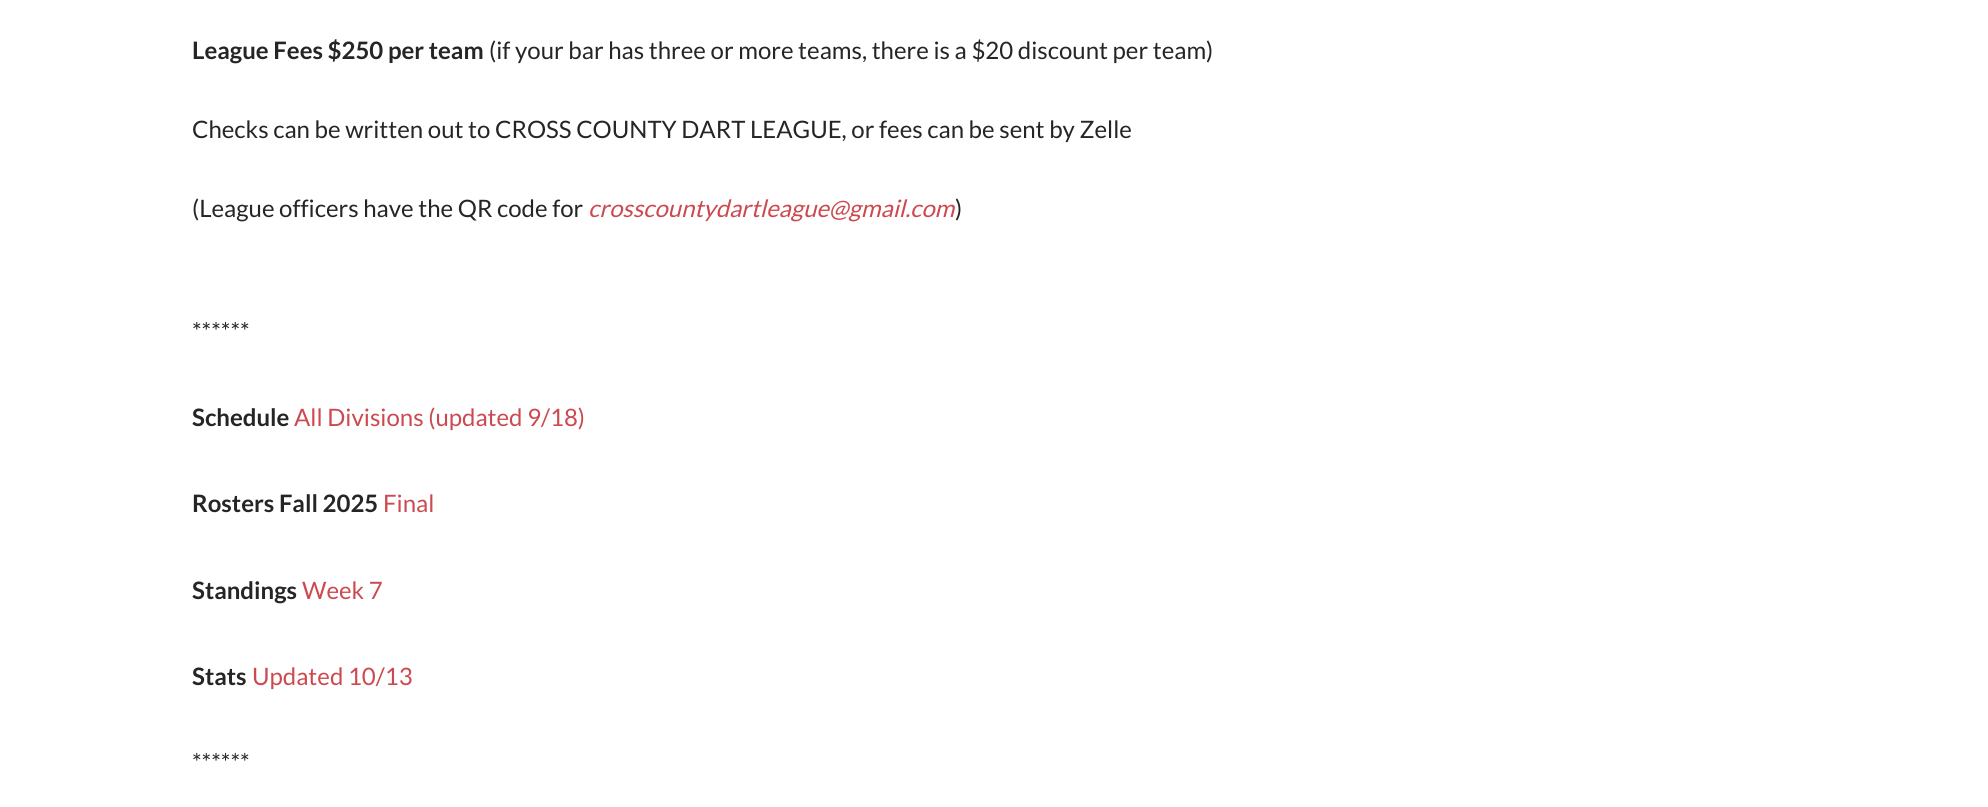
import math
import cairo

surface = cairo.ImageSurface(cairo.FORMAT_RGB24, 1988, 807)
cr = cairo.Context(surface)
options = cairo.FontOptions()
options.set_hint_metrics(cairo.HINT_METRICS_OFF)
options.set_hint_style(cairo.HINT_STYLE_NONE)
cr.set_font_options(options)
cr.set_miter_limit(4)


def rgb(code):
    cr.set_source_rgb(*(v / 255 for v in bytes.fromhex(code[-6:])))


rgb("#ffffff")
cr.paint()
cr.select_font_face("Lato", cairo.FONT_SLANT_NORMAL, cairo.FONT_WEIGHT_BOLD)
cr.set_font_size(24)
rgb("#252525")
cr.move_to(192, 59)
cr.show_text("League Fees $250 per team")
cr.select_font_face("Lato")
for x, y, s in [
    (489, 59, "(if your bar has three or more teams, there is a $20 discount per team)"),
    (192, 138, "Checks can be written out to CROSS COUNTY DART LEAGUE, or fees can be sent by Zelle"),
    (192, 217, "(League officers have the QR code for"),
]:
    cr.move_to(x, y)
    cr.show_text(s)
cr.select_font_face("Lato", cairo.FONT_SLANT_ITALIC)
rgb("#cc494f")
cr.move_to(588, 217)
cr.show_text("crosscountydartleague@gmail.com")
cr.select_font_face("Lato")
rgb("#252525")
cr.move_to(955, 217)
cr.show_text(")")
cr.move_to(192, 340)
cr.show_text("******")
cr.select_font_face("Lato", cairo.FONT_SLANT_NORMAL, cairo.FONT_WEIGHT_BOLD)
cr.move_to(192, 426)
cr.show_text("Schedule")
cr.select_font_face("Lato")
rgb("#cc494f")
cr.move_to(294, 426)
cr.show_text("All Divisions (updated 9/18)")
cr.select_font_face("Lato", cairo.FONT_SLANT_NORMAL, cairo.FONT_WEIGHT_BOLD)
rgb("#252525")
cr.move_to(192, 512)
cr.show_text("Rosters Fall 2025")
cr.select_font_face("Lato")
rgb("#cc494f")
cr.move_to(383, 512)
cr.show_text("Final")
cr.select_font_face("Lato", cairo.FONT_SLANT_NORMAL, cairo.FONT_WEIGHT_BOLD)
rgb("#252525")
cr.move_to(192, 599)
cr.show_text("Standings")
cr.select_font_face("Lato")
rgb("#cc494f")
cr.move_to(302, 599)
cr.show_text("Week 7")
cr.select_font_face("Lato", cairo.FONT_SLANT_NORMAL, cairo.FONT_WEIGHT_BOLD)
rgb("#252525")
cr.move_to(192, 685)
cr.show_text("Stats")
cr.select_font_face("Lato")
rgb("#cc494f")
cr.move_to(252, 685)
cr.show_text("Updated 10/13")
rgb("#252525")
cr.move_to(192, 771)
cr.show_text("******")
surface.write_to_png("page.png")
